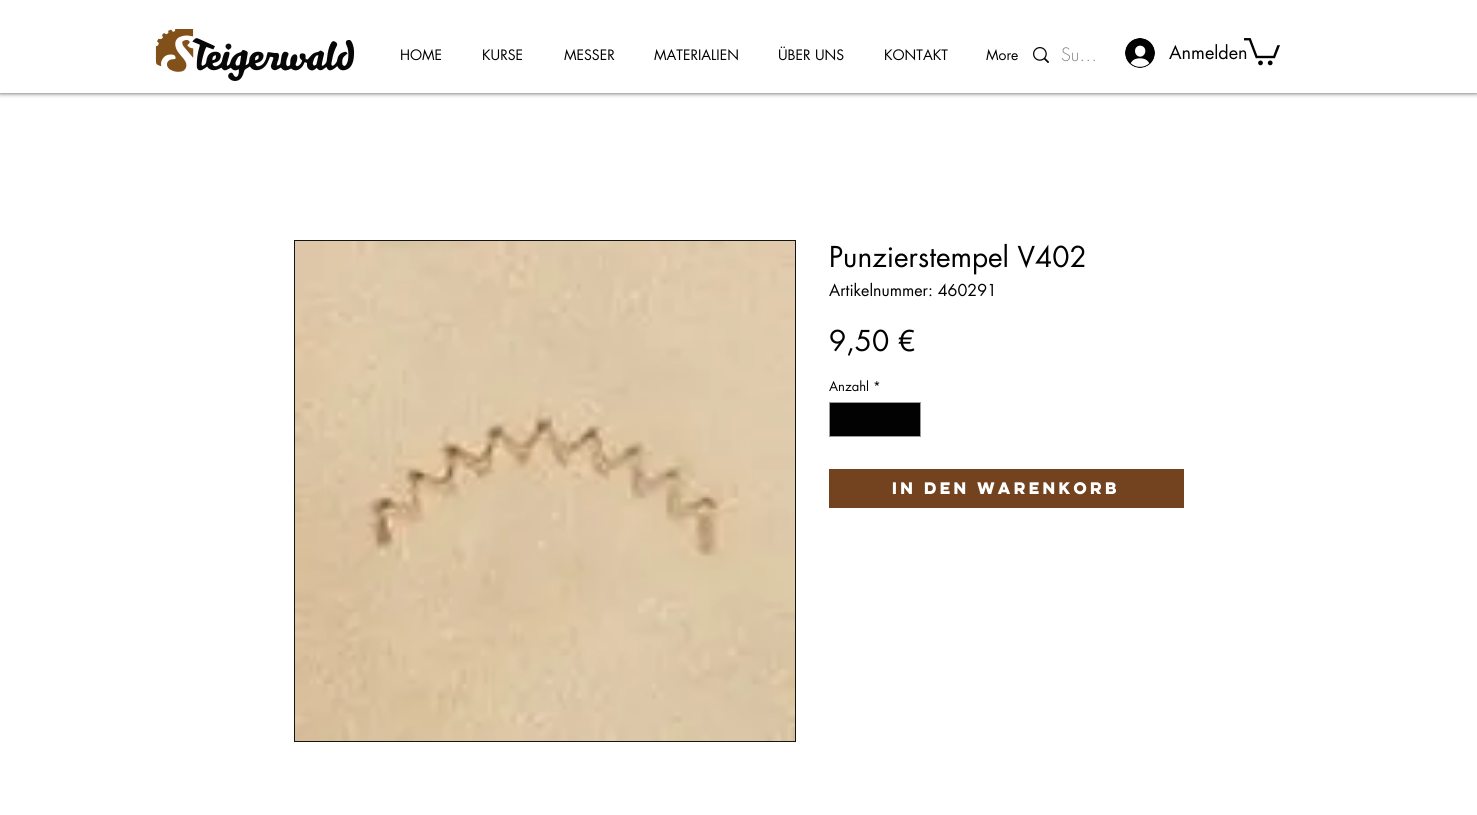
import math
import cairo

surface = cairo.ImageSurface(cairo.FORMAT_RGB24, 1477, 815)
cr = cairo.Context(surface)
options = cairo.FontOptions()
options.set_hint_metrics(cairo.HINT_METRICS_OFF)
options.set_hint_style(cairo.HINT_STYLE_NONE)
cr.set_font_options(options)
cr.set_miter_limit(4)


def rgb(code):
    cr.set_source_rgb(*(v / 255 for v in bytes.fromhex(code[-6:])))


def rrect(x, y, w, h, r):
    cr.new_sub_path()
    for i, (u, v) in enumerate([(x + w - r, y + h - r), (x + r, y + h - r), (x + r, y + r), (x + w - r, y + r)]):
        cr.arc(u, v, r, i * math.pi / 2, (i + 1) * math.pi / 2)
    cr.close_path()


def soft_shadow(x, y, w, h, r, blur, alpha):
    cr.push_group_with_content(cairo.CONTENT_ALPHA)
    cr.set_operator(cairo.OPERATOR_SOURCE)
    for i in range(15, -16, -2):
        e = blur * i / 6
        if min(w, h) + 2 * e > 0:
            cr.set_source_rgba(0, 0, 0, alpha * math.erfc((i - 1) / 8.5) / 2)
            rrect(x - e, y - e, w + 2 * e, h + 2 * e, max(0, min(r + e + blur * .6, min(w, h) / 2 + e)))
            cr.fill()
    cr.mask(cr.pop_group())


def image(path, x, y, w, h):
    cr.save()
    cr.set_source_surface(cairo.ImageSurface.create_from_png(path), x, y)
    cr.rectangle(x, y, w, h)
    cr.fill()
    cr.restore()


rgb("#ffffff")
cr.paint()
cr.save()
cr.rectangle(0, 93, 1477, 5)
cr.clip()
rgb("#000000")
soft_shadow(0, 0, 1477, 93, 0, 2.5, 0.7)
cr.restore()
image("img/1.png", 155, 29, 200, 52)
image("img/2.png", 1033, 47, 16, 16)
image("img/3.png", 1125, 38, 30, 30)
cr.rectangle(294.5, 240.5, 501, 501)
rgb("#141414")
cr.set_line_width(1)
cr.stroke()
image("img/5.png", 295, 241, 500, 500)
rgb("#020202")
cr.rectangle(829.5, 402.5, 91, 34)
cr.fill_preserve()
rgb("#9a9a9a")
cr.stroke()
rgb("#73421f")
cr.rectangle(829, 469, 355, 39)
cr.fill()
cr.select_font_face("futura")
cr.set_font_size(14)
rgb("#000000")
for x, y, s in [
    (400, 60, "HOME"),
    (482, 60, "KURSE"),
    (564, 60, "MESSER"),
    (654, 60, "MATERIALIEN"),
    (778, 60, "ÜBER UNS"),
    (884, 60, "KONTAKT"),
    (986, 60, "More"),
]:
    cr.move_to(x, y)
    cr.show_text(s)
cr.select_font_face("futura Light")
cr.set_font_size(18)
rgb("#858585")
cr.move_to(1061, 61)
cr.show_text("Su…")
cr.select_font_face("futura")
rgb("#000000")
cr.move_to(1169, 59)
cr.show_text("Anmelden")
image("img/4.png", 1244, 38, 36, 28)
cr.set_font_size(28)
cr.move_to(829, 267)
cr.show_text("Punzierstempel V402")
cr.set_font_size(16)
cr.move_to(829, 296)
cr.show_text("Artikelnummer: 460291")
cr.set_font_size(28)
cr.move_to(829, 351)
cr.show_text("9,50 €")
cr.set_font_size(13)
cr.move_to(829, 391)
cr.show_text("Anzahl *")
cr.select_font_face("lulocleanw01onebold", cairo.FONT_SLANT_NORMAL, cairo.FONT_WEIGHT_BOLD)
cr.set_font_size(15)
rgb("#ffffff")
cr.move_to(892, 494)
cr.show_text("In den Warenkorb")
surface.write_to_png("page.png")
